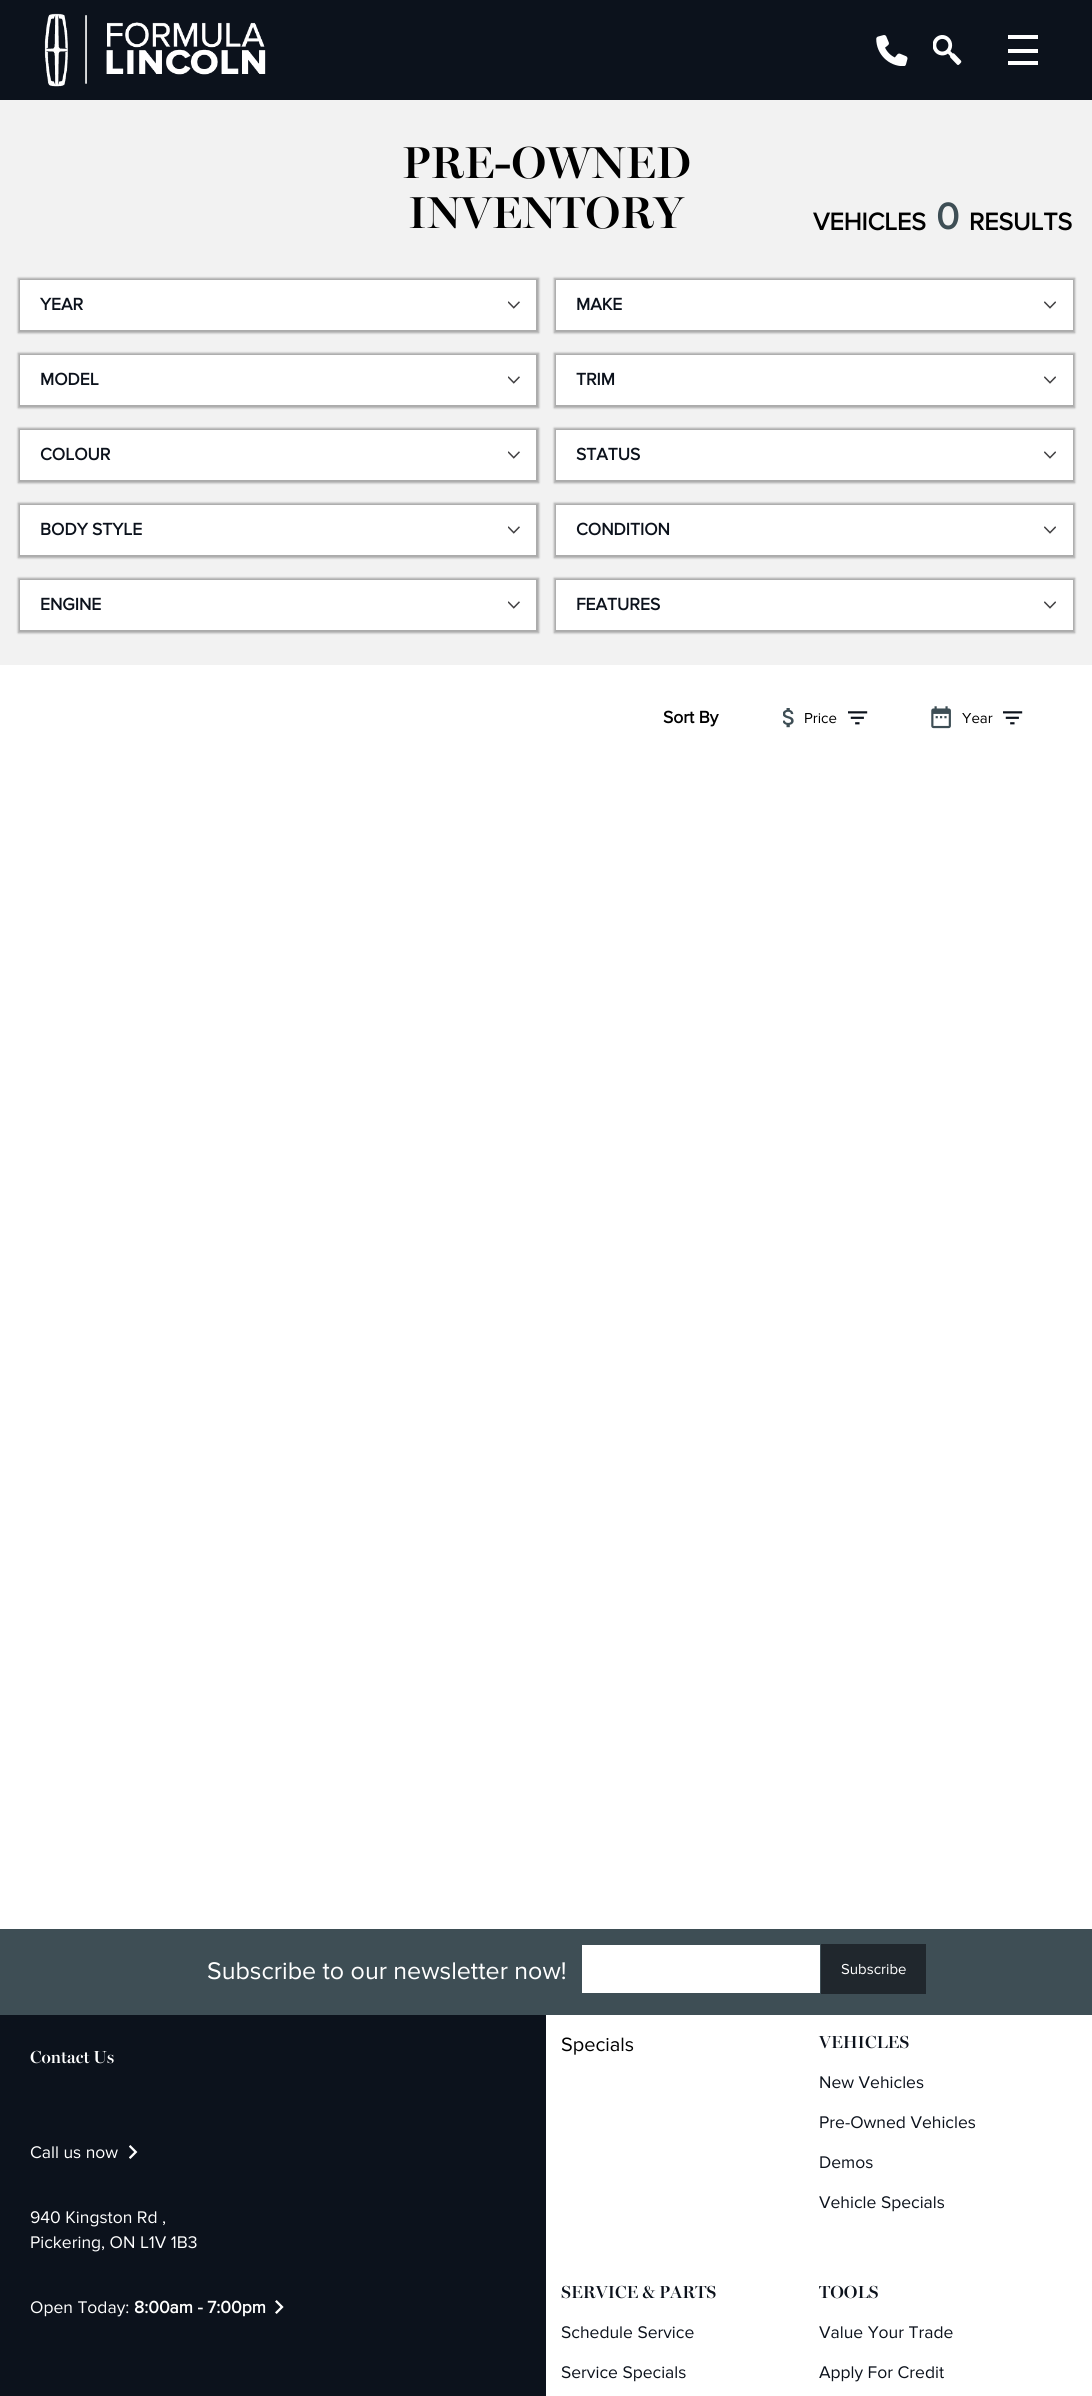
import math
import cairo

surface = cairo.ImageSurface(cairo.FORMAT_RGB24, 1092, 2396)
cr = cairo.Context(surface)
options = cairo.FontOptions()
options.set_hint_metrics(cairo.HINT_METRICS_OFF)
options.set_hint_style(cairo.HINT_STYLE_NONE)
cr.set_font_options(options)
cr.set_miter_limit(4)


def rgb(code):
    cr.set_source_rgb(*(v / 255 for v in bytes.fromhex(code[-6:])))


def rrect(x, y, w, h, r):
    cr.new_sub_path()
    for i, (u, v) in enumerate([(x + w - r, y + h - r), (x + r, y + h - r), (x + r, y + r), (x + w - r, y + r)]):
        cr.arc(u, v, r, i * math.pi / 2, (i + 1) * math.pi / 2)
    cr.close_path()


def soft_shadow(x, y, w, h, r, blur, alpha):
    cr.push_group_with_content(cairo.CONTENT_ALPHA)
    cr.set_operator(cairo.OPERATOR_SOURCE)
    for i in range(15, -16, -2):
        e = blur * i / 6
        if min(w, h) + 2 * e > 0:
            cr.set_source_rgba(0, 0, 0, alpha * math.erfc((i - 1) / 8.5) / 2)
            rrect(x - e, y - e, w + 2 * e, h + 2 * e, max(0, min(r + e + blur * .6, min(w, h) / 2 + e)))
            cr.fill()
    cr.mask(cr.pop_group())


def image(path, x, y, w, h):
    cr.save()
    cr.set_source_surface(cairo.ImageSurface.create_from_png(path), x, y)
    cr.rectangle(x, y, w, h)
    cr.fill()
    cr.restore()


rgb("#ffffff")
cr.paint()
rgb("#0c121c")
cr.rectangle(0, 0, 1092, 100)
cr.fill()
image("img/1.png", 44, 13, 222, 74)
image("img/2.png", 876, 35, 32, 31)
image("img/3.png", 933, 35, 29, 30)
for x, y, w, h, color in [
    (1008, 35, 30, 4, "#ffffff"),
    (1008, 49, 30, 4, "#ffffff"),
    (1008, 61, 30, 4, "#ffffff"),
    (0, 100, 1092, 565, "#f2f2f2"),
]:
    rgb(color)
    cr.rectangle(x, y, w, h)
    cr.fill()
rgb("#000000")
soft_shadow(18, 278, 521, 55, 0, 1, 0.3)
rgb("#ffffff")
cr.rectangle(20, 280, 516, 50)
cr.fill()
image("img/4.png", 508, 301, 12, 8)
rgb("#000000")
soft_shadow(554, 278, 521, 55, 0, 1, 0.3)
rgb("#ffffff")
cr.rectangle(556, 280, 517, 50)
cr.fill()
image("img/5.png", 1044, 301, 12, 8)
rgb("#000000")
soft_shadow(18, 353, 521, 55, 0, 1, 0.3)
rgb("#ffffff")
cr.rectangle(20, 355, 516, 50)
cr.fill()
image("img/4.png", 508, 376, 12, 8)
rgb("#000000")
soft_shadow(554, 353, 521, 55, 0, 1, 0.3)
rgb("#ffffff")
cr.rectangle(556, 355, 517, 50)
cr.fill()
image("img/5.png", 1044, 376, 12, 8)
rgb("#000000")
soft_shadow(18, 428, 521, 55, 0, 1, 0.3)
rgb("#ffffff")
cr.rectangle(20, 430, 516, 50)
cr.fill()
image("img/4.png", 508, 451, 12, 8)
rgb("#000000")
soft_shadow(554, 428, 521, 55, 0, 1, 0.3)
rgb("#ffffff")
cr.rectangle(556, 430, 517, 50)
cr.fill()
image("img/5.png", 1044, 451, 12, 8)
rgb("#000000")
soft_shadow(18, 503, 521, 55, 0, 1, 0.3)
rgb("#ffffff")
cr.rectangle(20, 505, 516, 50)
cr.fill()
image("img/4.png", 508, 526, 12, 8)
rgb("#000000")
soft_shadow(554, 503, 521, 55, 0, 1, 0.3)
rgb("#ffffff")
cr.rectangle(556, 505, 517, 50)
cr.fill()
image("img/5.png", 1044, 526, 12, 8)
rgb("#000000")
soft_shadow(18, 578, 521, 55, 0, 1, 0.3)
rgb("#ffffff")
cr.rectangle(20, 580, 516, 50)
cr.fill()
image("img/4.png", 508, 601, 12, 8)
rgb("#000000")
soft_shadow(554, 578, 521, 55, 0, 1, 0.3)
rgb("#ffffff")
cr.rectangle(556, 580, 517, 50)
cr.fill()
image("img/5.png", 1044, 601, 12, 8)
image("img/6.png", 783, 708, 11, 20)
image("img/7.png", 848, 711, 20, 14)
image("img/8.png", 931, 706, 20, 23)
image("img/7.png", 1003, 711, 20, 14)
for x, y, w, h, color in [
    (0, 1929, 1092, 86, "#3e4e55"),
    (582, 1945, 238, 48, "#ffffff"),
    (821, 1944, 105, 50, "#20272d"),
    (0, 2015, 546, 381, "#0c121c"),
]:
    rgb(color)
    cr.rectangle(x, y, w, h)
    cr.fill()
image("img/9.png", 129, 2145, 9, 14)
image("img/10.png", 275, 2300, 9, 14)
cr.select_font_face("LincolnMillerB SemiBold")
cr.set_font_size(45)
rgb("#000000")
cr.move_to(402, 178)
cr.show_text("PRE-OWNED")
cr.move_to(408, 228)
cr.show_text("INVENTORY")
cr.select_font_face("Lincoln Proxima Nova", cairo.FONT_SLANT_NORMAL, cairo.FONT_WEIGHT_BOLD)
cr.set_font_size(25)
cr.move_to(813, 230)
cr.show_text("VEHICLES")
cr.set_font_size(38)
rgb("#3e4e55")
cr.move_to(936, 229)
cr.show_text("0")
cr.set_font_size(25)
rgb("#000000")
cr.move_to(969, 230)
cr.show_text("RESULTS")
cr.set_font_size(17.5)
rgb("#0c121c")
for x, y, s in [
    (40, 310, "YEAR"),
    (576, 310, "MAKE"),
    (40, 385, "MODEL"),
    (576, 385, "TRIM"),
    (40, 460, "COLOUR"),
    (576, 460, "STATUS"),
    (40, 535, "BODY STYLE"),
    (576, 535, "CONDITION"),
    (40, 610, "ENGINE"),
    (576, 610, "FEATURES"),
]:
    cr.move_to(x, y)
    cr.show_text(s)
rgb("#000000")
cr.move_to(663, 723)
cr.show_text("Sort By")
cr.select_font_face("Lincoln Proxima Nova")
cr.set_font_size(15)
cr.move_to(804, 723)
cr.show_text("Price")
cr.move_to(962, 723)
cr.show_text("Year")
cr.set_font_size(25)
rgb("#ffffff")
cr.move_to(207, 1979)
cr.show_text("Subscribe to our newsletter now!")
cr.set_font_size(15)
cr.move_to(841, 1974)
cr.show_text("Subscribe")
cr.select_font_face("LincolnMillerB SemiBold")
cr.set_font_size(17.5)
cr.move_to(30, 2063)
cr.show_text("Contact Us")
cr.select_font_face("Lincoln Proxima Nova")
for x, y, s in [
    (30, 2158, "Call us now"),
    (30, 2223, "940 Kingston Rd ,"),
    (30, 2248, "Pickering, ON L1V 1B3"),
    (30, 2313, "Open Today:"),
]:
    cr.move_to(x, y)
    cr.show_text(s)
cr.select_font_face("Lincoln Proxima Nova", cairo.FONT_SLANT_NORMAL, cairo.FONT_WEIGHT_BOLD)
cr.move_to(134, 2313)
cr.show_text("8:00am - 7:00pm")
cr.select_font_face("Lincoln Proxima Nova")
cr.set_font_size(20)
rgb("#000000")
cr.move_to(561, 2051)
cr.show_text("Specials")
cr.select_font_face("LincolnMillerB SemiBold")
cr.set_font_size(17.5)
rgb("#0c121c")
cr.move_to(819, 2048)
cr.show_text("VEHICLES")
cr.select_font_face("Lincoln Proxima Nova")
for x, y, s in [
    (819, 2088, "New Vehicles"),
    (819, 2128, "Pre-Owned Vehicles"),
    (819, 2168, "Demos"),
    (819, 2208, "Vehicle Specials"),
]:
    cr.move_to(x, y)
    cr.show_text(s)
cr.select_font_face("LincolnMillerB SemiBold")
cr.move_to(561, 2298)
cr.show_text("SERVICE & PARTS")
cr.select_font_face("Lincoln Proxima Nova")
cr.move_to(561, 2338)
cr.show_text("Schedule Service")
cr.move_to(561, 2378)
cr.show_text("Service Specials")
cr.select_font_face("LincolnMillerB SemiBold")
cr.move_to(819, 2298)
cr.show_text("TOOLS")
cr.select_font_face("Lincoln Proxima Nova")
cr.move_to(819, 2338)
cr.show_text("Value Your Trade")
cr.move_to(819, 2378)
cr.show_text("Apply For Credit")
surface.write_to_png("page.png")
